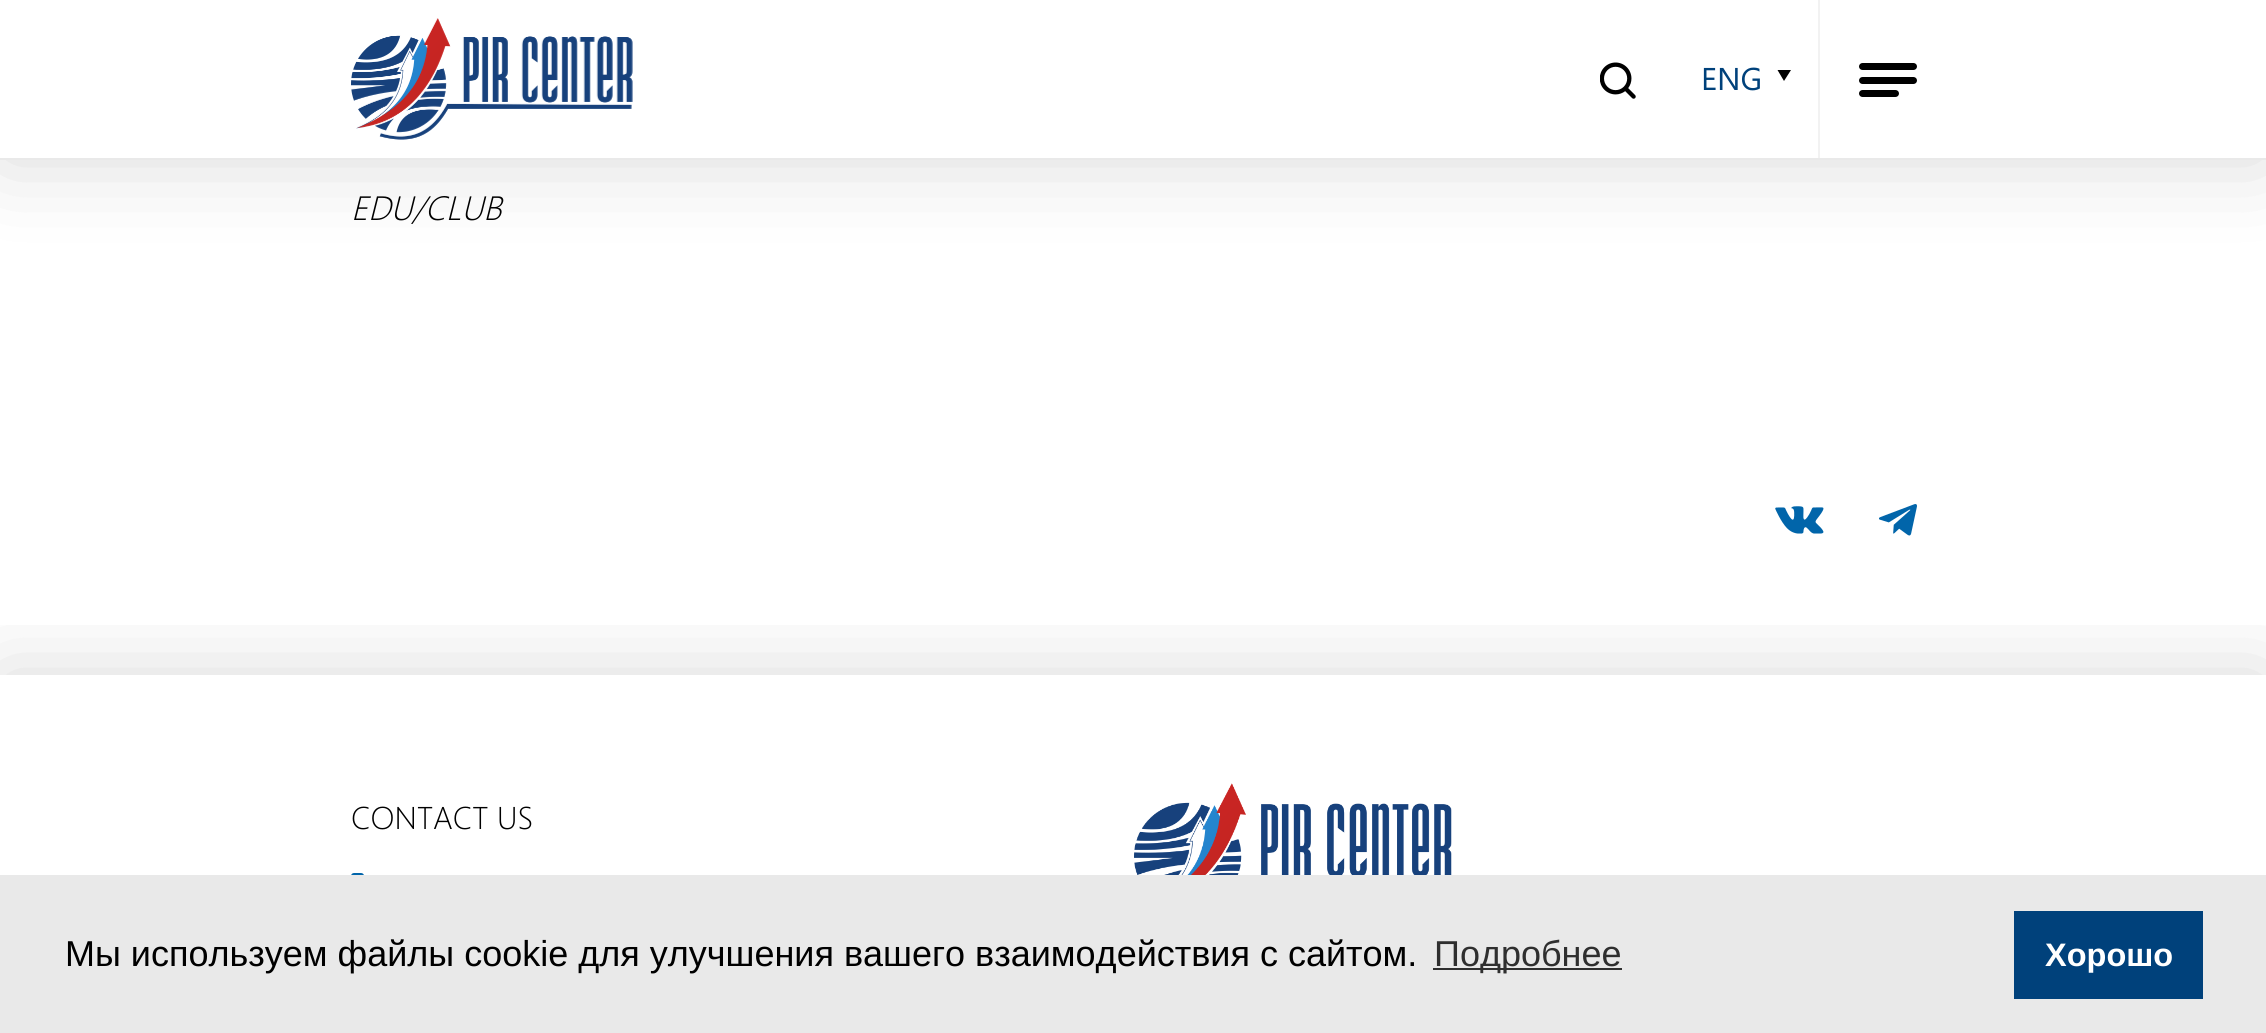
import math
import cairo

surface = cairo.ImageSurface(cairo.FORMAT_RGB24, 2266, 1033)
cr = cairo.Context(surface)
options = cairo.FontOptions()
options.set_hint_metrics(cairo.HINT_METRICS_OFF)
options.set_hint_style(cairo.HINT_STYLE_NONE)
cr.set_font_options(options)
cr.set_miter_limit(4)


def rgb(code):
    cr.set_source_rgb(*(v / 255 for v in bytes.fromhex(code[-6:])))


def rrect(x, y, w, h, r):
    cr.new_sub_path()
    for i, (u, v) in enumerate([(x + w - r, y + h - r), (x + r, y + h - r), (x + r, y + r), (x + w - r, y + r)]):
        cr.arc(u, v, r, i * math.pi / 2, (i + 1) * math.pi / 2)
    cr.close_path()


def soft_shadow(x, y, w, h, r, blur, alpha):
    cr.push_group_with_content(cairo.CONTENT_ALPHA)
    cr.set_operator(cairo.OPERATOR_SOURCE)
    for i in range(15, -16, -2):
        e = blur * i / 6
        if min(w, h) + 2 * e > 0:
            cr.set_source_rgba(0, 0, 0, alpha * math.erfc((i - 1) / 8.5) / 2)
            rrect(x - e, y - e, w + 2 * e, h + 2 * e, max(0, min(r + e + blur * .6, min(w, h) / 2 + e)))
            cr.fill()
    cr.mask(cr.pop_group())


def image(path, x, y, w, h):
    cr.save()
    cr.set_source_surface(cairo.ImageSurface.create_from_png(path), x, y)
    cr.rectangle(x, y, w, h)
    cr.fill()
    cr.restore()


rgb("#ffffff")
cr.paint()
rgb("#000000")
soft_shadow(0, 0, 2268, 160, 0, 45, 0.15)
rgb("#ffffff")
cr.rectangle(0, 0, 2266, 158)
cr.fill()
rgb("#e9e9e9")
cr.rectangle(0, 158, 2266, 2)
cr.fill()
image("img/1.png", 351, 18, 282, 122)
image("img/2.png", 1600, 62, 36, 37)
rgb("#f2f2f2")
cr.rectangle(1818, 0, 2, 158)
cr.fill()
rgb("#000000")
cr.new_path()
cr.move_to(1777.5, 70)
cr.line_to(1791, 70)
cr.line_to(1784, 81)
cr.close_path()
cr.fill()
rrect(1859, 63, 58, 7, 3.5)
cr.fill()
rrect(1859, 77, 58, 7, 3.5)
cr.fill()
rrect(1859, 90, 40, 7, 3.5)
cr.fill()
image("img/3.png", 1775, 506, 49, 28)
image("img/4.png", 1879, 504, 38, 32)
cr.save()
cr.rectangle(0, 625, 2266, 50)
cr.clip()
rgb("#000000")
soft_shadow(0, 675, 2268, 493, 0, 45, 0.15)
cr.restore()
image("img/5.png", 351, 873, 13, 2)
image("img/6.png", 1134, 783, 318, 92)
for x, y, w, h, color in [
    (0, 875, 2266, 158, "#e9e9e9"),
    (1433, 968, 189, 2, "#2f2f2f"),
    (2014, 911, 189, 88, "#00417b"),
]:
    rgb(color)
    cr.rectangle(x, y, w, h)
    cr.fill()
cr.select_font_face("Segoe UI")
cr.set_font_size(31.5)
cr.move_to(1701, 90)
cr.show_text("ENG")
cr.select_font_face("Segoe UI Light", cairo.FONT_SLANT_ITALIC)
cr.set_font_size(33.75)
rgb("#000000")
cr.move_to(351, 220)
cr.show_text("EDU/CLUB")
cr.select_font_face("Segoe UI Light")
cr.set_font_size(31.5)
cr.move_to(351, 829)
cr.show_text("CONTACT US")
cr.select_font_face("Liberation Sans")
cr.set_font_size(36)
cr.move_to(65, 966)
cr.show_text("Мы используем файлы cookie для улучшения вашего взаимодействия с сайтом.")
rgb("#2f2f2f")
cr.move_to(1434, 966)
cr.show_text("Подробнее")
cr.select_font_face("Liberation Sans", cairo.FONT_SLANT_NORMAL, cairo.FONT_WEIGHT_BOLD)
cr.set_font_size(32.5)
rgb("#ffffff")
cr.move_to(2045, 966)
cr.show_text("Хорошо")
surface.write_to_png("page.png")
